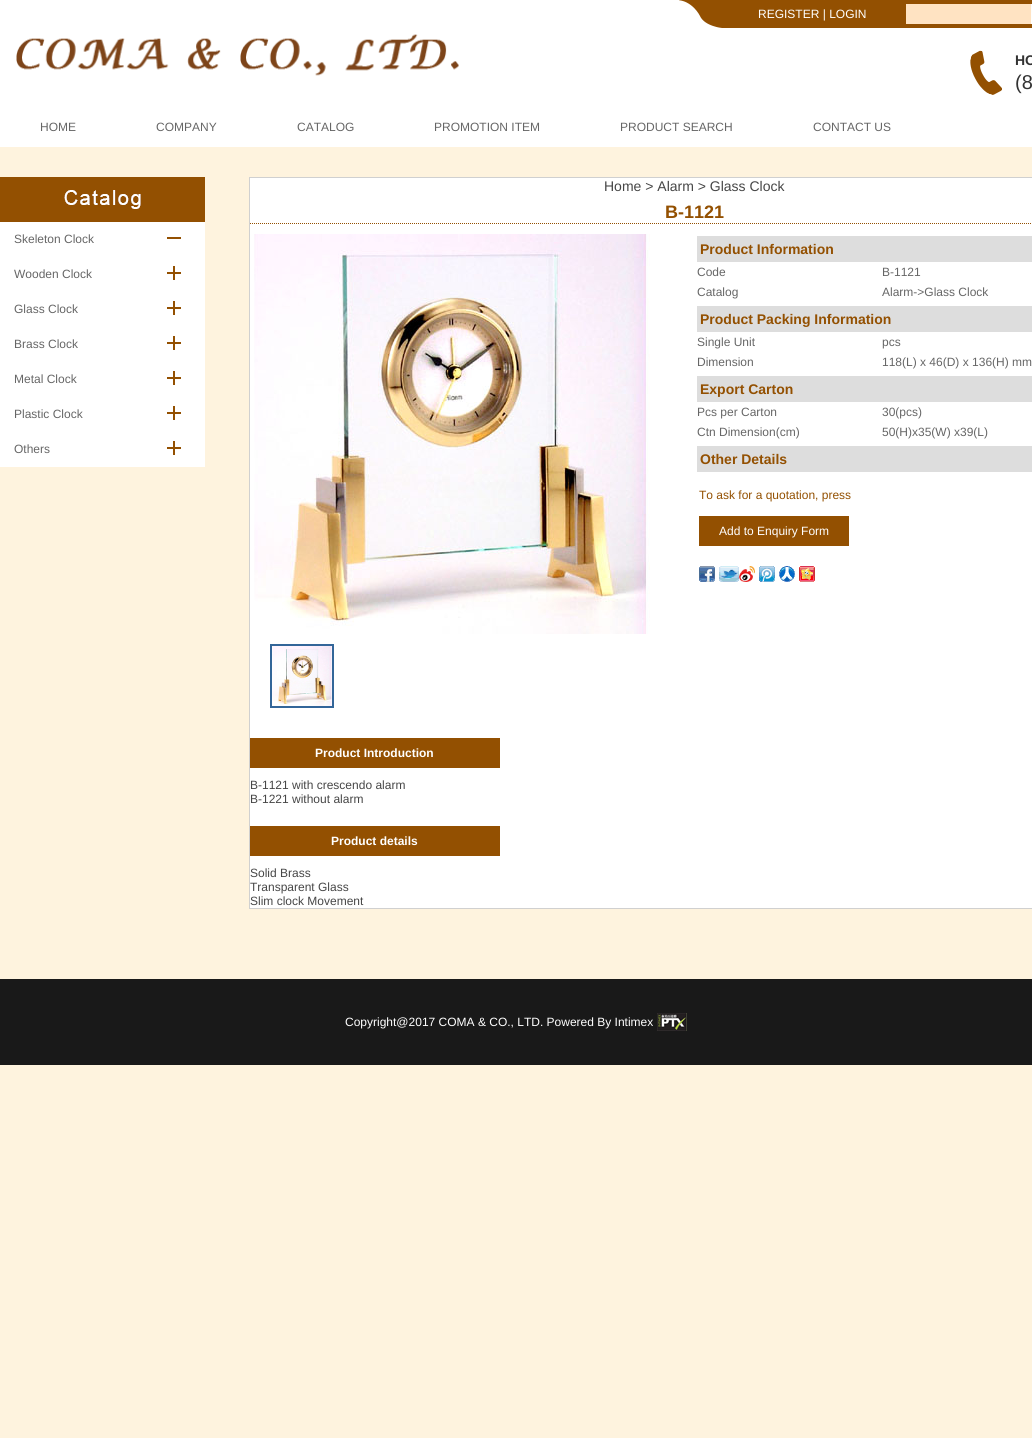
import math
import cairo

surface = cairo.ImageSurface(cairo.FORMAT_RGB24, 1032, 1438)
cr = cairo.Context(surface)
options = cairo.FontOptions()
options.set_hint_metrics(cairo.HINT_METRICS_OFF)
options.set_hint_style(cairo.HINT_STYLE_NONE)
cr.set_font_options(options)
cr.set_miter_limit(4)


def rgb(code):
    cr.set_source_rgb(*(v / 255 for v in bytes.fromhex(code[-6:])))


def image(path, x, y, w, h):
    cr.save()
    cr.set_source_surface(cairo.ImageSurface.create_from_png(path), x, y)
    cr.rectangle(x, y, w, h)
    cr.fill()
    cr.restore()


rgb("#fef3de")
cr.paint()
rgb("#ffffff")
cr.rectangle(0, 0, 1032, 147)
cr.fill()
image("img/1.png", 16, 34, 443, 42)
image("img/2.png", 679, 0, 49, 28)
rgb("#935001")
cr.rectangle(728, 0, 304, 28)
cr.fill()
rgb("#ffe3c2")
cr.rectangle(906, 4, 125, 20)
cr.fill()
image("img/3.png", 1031, 4, 1, 20)
image("img/4.png", 970, 50, 32, 45)
rgb("#935001")
cr.rectangle(0, 177, 205, 45)
cr.fill()
image("img/5.png", 64, 190, 77, 19)
rgb("#ffffff")
cr.rectangle(0, 222, 205, 245)
cr.fill()
rgb("#935001")
cr.rectangle(167, 237, 14, 2)
cr.fill()
image("img/6.png", 167, 266, 14, 14)
image("img/6.png", 167, 301, 14, 14)
image("img/6.png", 167, 336, 14, 14)
image("img/6.png", 167, 371, 14, 14)
image("img/6.png", 167, 406, 14, 14)
image("img/6.png", 167, 441, 14, 14)
rgb("#ffffff")
cr.rectangle(249.5, 177.5, 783, 731)
cr.fill_preserve()
rgb("#d0d0d0")
cr.set_line_width(1)
cr.stroke()
cr.new_path()
cr.move_to(250, 223.5)
cr.line_to(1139, 223.5)
rgb("#935001")
cr.set_dash([1, 1])
cr.stroke()
image("img/7.png", 254, 234, 396, 400)
cr.rectangle(271, 645, 62, 62)
rgb("#336699")
cr.set_line_width(2)
cr.set_dash([])
cr.stroke()
image("img/8.png", 272, 646, 60, 60)
for x, y, w, h, color in [
    (697, 236, 335, 26, "#dddddd"),
    (697, 306, 335, 26, "#dddddd"),
    (697, 376, 335, 26, "#dddddd"),
    (697, 446, 335, 26, "#dddddd"),
    (699, 516, 150, 30, "#935001"),
]:
    rgb(color)
    cr.rectangle(x, y, w, h)
    cr.fill()
image("img/9.png", 699, 566, 16, 16)
image("img/10.png", 719, 566, 20, 16)
image("img/11.png", 739, 566, 16, 16)
image("img/12.png", 759, 566, 16, 16)
image("img/13.png", 779, 566, 16, 16)
image("img/14.png", 799, 566, 16, 16)
for x, y, w, h, color in [
    (250, 738, 250, 30, "#935001"),
    (250, 826, 250, 30, "#935001"),
    (0, 979, 1032, 86, "#191919"),
]:
    rgb(color)
    cr.rectangle(x, y, w, h)
    cr.fill()
image("img/15.png", 657, 1013, 30, 18)
cr.select_font_face("Liberation Sans")
cr.set_font_size(12)
rgb("#ffffff")
cr.move_to(758, 18)
cr.show_text("REGISTER | LOGIN")
cr.select_font_face("Liberation Sans", cairo.FONT_SLANT_NORMAL, cairo.FONT_WEIGHT_BOLD)
cr.set_font_size(14)
rgb("#333333")
cr.move_to(1015, 65)
cr.show_text("HO")
cr.select_font_face("Liberation Sans")
cr.set_font_size(20)
cr.move_to(1015, 89)
cr.show_text("(8")
cr.set_font_size(12)
rgb("#666666")
for x, y, s in [
    (40, 131, "HOME"),
    (156, 131, "COMPANY"),
    (297, 131, "CATALOG"),
    (434, 131, "PROMOTION ITEM"),
    (620, 131, "PRODUCT SEARCH"),
    (813, 131, "CONTACT US"),
    (14, 243, "Skeleton Clock"),
    (14, 278, "Wooden Clock"),
    (14, 313, "Glass Clock"),
    (14, 348, "Brass Clock"),
    (14, 383, "Metal Clock"),
    (14, 418, "Plastic Clock"),
    (14, 453, "Others"),
]:
    cr.move_to(x, y)
    cr.show_text(s)
cr.set_font_size(14)
rgb("#464646")
cr.move_to(604, 191)
cr.show_text("Home > Alarm > Glass Clock")
cr.select_font_face("Liberation Sans", cairo.FONT_SLANT_NORMAL, cairo.FONT_WEIGHT_BOLD)
cr.set_font_size(18)
rgb("#935001")
cr.move_to(665, 218)
cr.show_text("B-1121")
cr.set_font_size(14)
cr.move_to(700, 254)
cr.show_text("Product Information")
cr.select_font_face("Liberation Sans")
cr.set_font_size(12)
rgb("#666666")
for x, y, s in [
    (697, 276, "Code"),
    (882, 276, "B-1121"),
    (697, 296, "Catalog"),
    (882, 296, "Alarm->Glass Clock"),
]:
    cr.move_to(x, y)
    cr.show_text(s)
cr.select_font_face("Liberation Sans", cairo.FONT_SLANT_NORMAL, cairo.FONT_WEIGHT_BOLD)
cr.set_font_size(14)
rgb("#935001")
cr.move_to(700, 324)
cr.show_text("Product Packing Information")
cr.select_font_face("Liberation Sans")
cr.set_font_size(12)
rgb("#666666")
for x, y, s in [
    (697, 346, "Single Unit"),
    (882, 346, "pcs"),
    (697, 366, "Dimension"),
    (882, 366, "118(L) x 46(D) x 136(H) mm"),
]:
    cr.move_to(x, y)
    cr.show_text(s)
cr.select_font_face("Liberation Sans", cairo.FONT_SLANT_NORMAL, cairo.FONT_WEIGHT_BOLD)
cr.set_font_size(14)
rgb("#935001")
cr.move_to(700, 394)
cr.show_text("Export Carton")
cr.select_font_face("Liberation Sans")
cr.set_font_size(12)
rgb("#666666")
for x, y, s in [
    (697, 416, "Pcs per Carton"),
    (882, 416, "30(pcs)"),
    (697, 436, "Ctn Dimension(cm)"),
    (882, 436, "50(H)x35(W) x39(L)"),
]:
    cr.move_to(x, y)
    cr.show_text(s)
cr.select_font_face("Liberation Sans", cairo.FONT_SLANT_NORMAL, cairo.FONT_WEIGHT_BOLD)
cr.set_font_size(14)
rgb("#935001")
cr.move_to(700, 464)
cr.show_text("Other Details")
cr.select_font_face("Liberation Sans")
cr.set_font_size(12)
cr.move_to(699, 499)
cr.show_text("To ask for a quotation, press")
rgb("#ffffff")
cr.move_to(719, 535)
cr.show_text("Add to Enquiry Form")
cr.select_font_face("Liberation Sans", cairo.FONT_SLANT_NORMAL, cairo.FONT_WEIGHT_BOLD)
cr.move_to(315, 757)
cr.show_text("Product Introduction")
cr.select_font_face("Liberation Sans")
rgb("#464646")
cr.move_to(250, 789)
cr.show_text("B-1121 with crescendo alarm")
cr.move_to(250, 803)
cr.show_text("B-1221 without alarm")
cr.select_font_face("Liberation Sans", cairo.FONT_SLANT_NORMAL, cairo.FONT_WEIGHT_BOLD)
rgb("#ffffff")
cr.move_to(331, 845)
cr.show_text("Product details")
cr.select_font_face("Liberation Sans")
rgb("#464646")
for x, y, s in [
    (250, 877, "Solid Brass"),
    (250, 891, "Transparent Glass"),
    (250, 905, "Slim clock Movement"),
]:
    cr.move_to(x, y)
    cr.show_text(s)
rgb("#ffffff")
cr.move_to(345, 1026)
cr.show_text("Copyright@2017 COMA & CO., LTD. Powered By Intimex")
surface.write_to_png("page.png")
